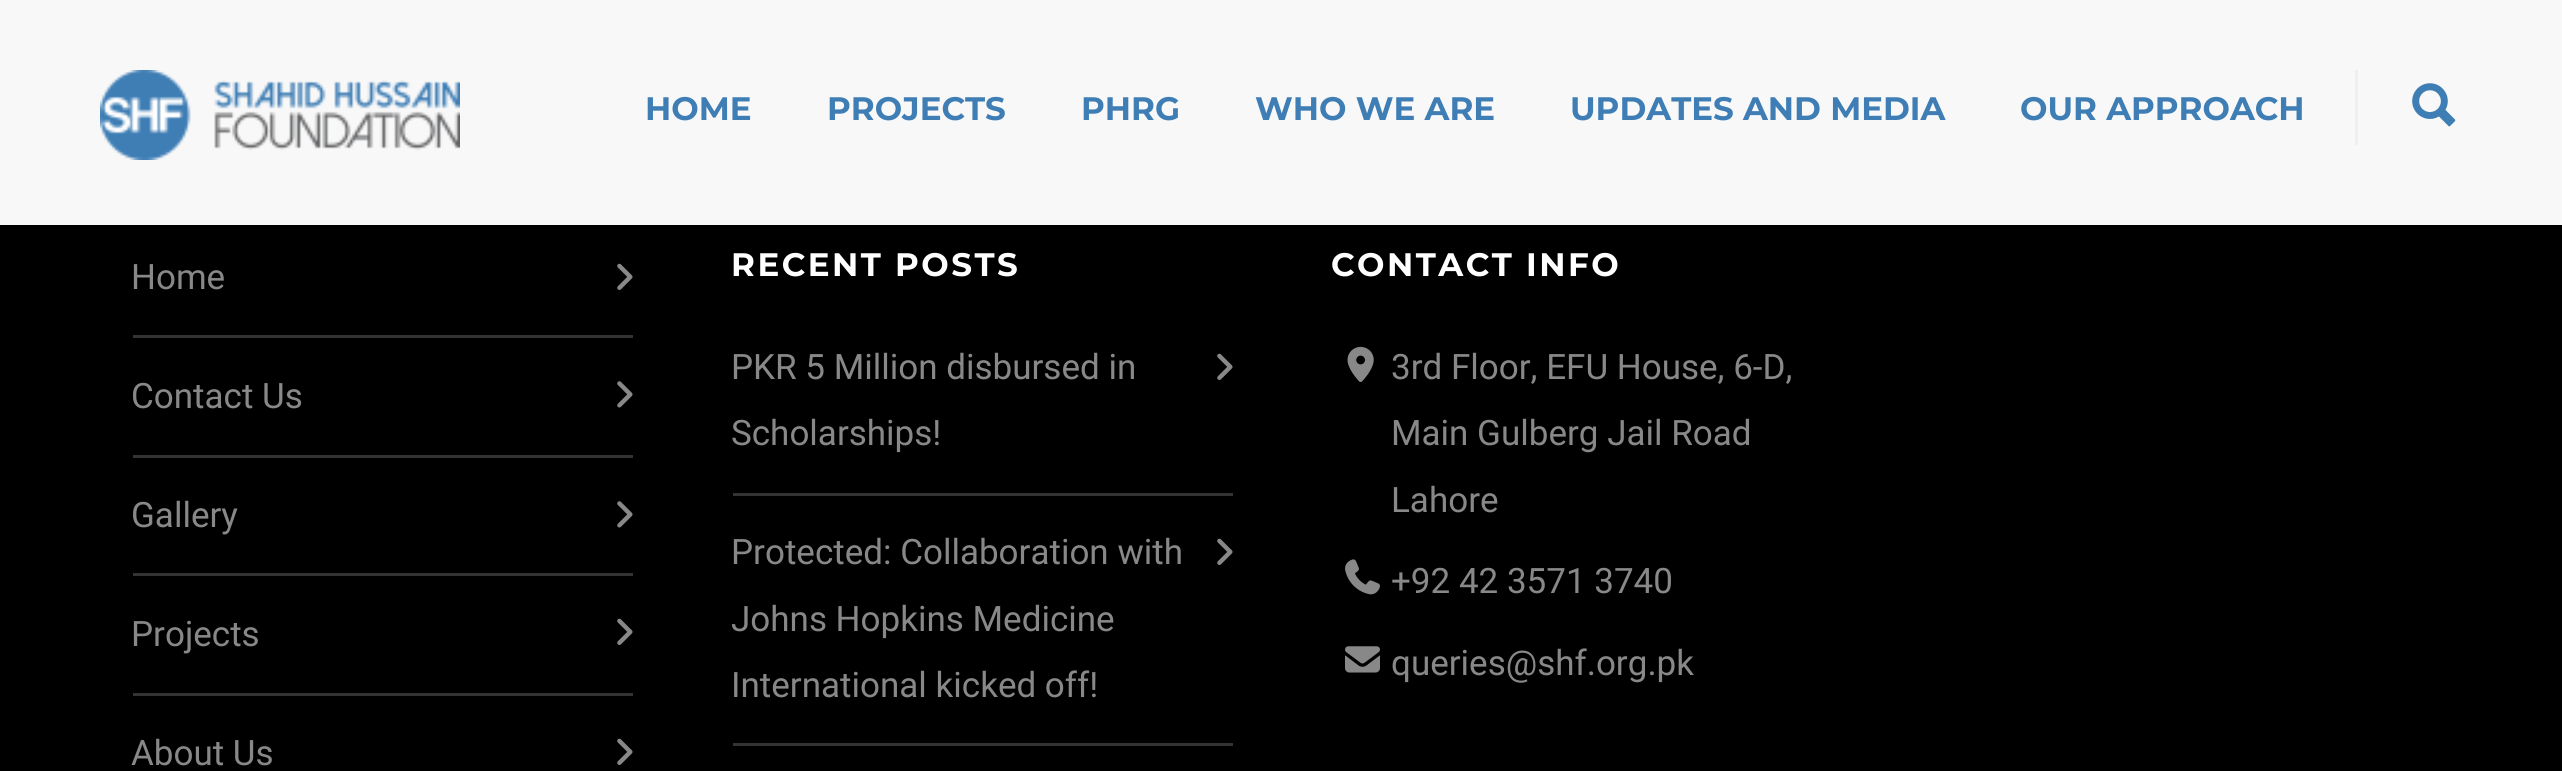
import math
import cairo

surface = cairo.ImageSurface(cairo.FORMAT_RGB24, 2562, 771)
cr = cairo.Context(surface)
options = cairo.FontOptions()
options.set_hint_metrics(cairo.HINT_METRICS_OFF)
options.set_hint_style(cairo.HINT_STYLE_NONE)
cr.set_font_options(options)
cr.set_miter_limit(4)


def rgb(code):
    cr.set_source_rgb(*(v / 255 for v in bytes.fromhex(code[-6:])))


def tracked(x, y, s, letter, word):
    cr.move_to(x, y)
    for ch in s:
        cr.show_text(ch)
        cr.rel_move_to(letter + word * (ch == ' '), 0)


def image(path, x, y, w, h):
    cr.save()
    cr.set_source_surface(cairo.ImageSurface.create_from_png(path), x, y)
    cr.rectangle(x, y, w, h)
    cr.fill()
    cr.restore()


rgb("#000000")
cr.paint()
rgb("#f8f8f8")
cr.rectangle(0, 0, 2562, 225)
cr.fill()
image("img/1.png", 100, 70, 360, 90)
rgb("#efefef")
cr.rectangle(2355, 70, 3, 75)
cr.fill()
image("img/2.png", 2412, 83, 44, 44)
rgb("#333333")
cr.rectangle(133, 335, 500, 3)
cr.fill()
image("img/3.png", 617, 263, 16, 27)
cr.rectangle(133, 455, 500, 3)
cr.fill()
image("img/4.png", 617, 381, 16, 27)
cr.rectangle(133, 573, 500, 3)
cr.fill()
image("img/4.png", 617, 501, 16, 27)
cr.rectangle(133, 693, 500, 3)
cr.fill()
image("img/3.png", 617, 618, 16, 27)
image("img/3.png", 617, 738, 16, 27)
cr.rectangle(733, 493, 500, 3)
cr.fill()
image("img/3.png", 1217, 353, 16, 27)
cr.rectangle(733, 743, 500, 3)
cr.fill()
image("img/3.png", 1217, 538, 16, 27)
image("img/5.png", 1347, 346, 27, 36)
image("img/6.png", 1345, 559, 35, 36)
image("img/7.png", 1345, 646, 35, 27)
cr.select_font_face("Montserrat", cairo.FONT_SLANT_NORMAL, cairo.FONT_WEIGHT_BOLD)
cr.set_font_size(32.5)
rgb("#3f7eb5")
for x, y, s in [
    (645, 120, "HOME"),
    (827, 120, "PROJECTS"),
    (1081, 120, "PHRG"),
    (1255, 120, "WHO WE ARE"),
    (1570, 120, "UPDATES AND MEDIA"),
    (2020, 120, "OUR APPROACH"),
]:
    cr.move_to(x, y)
    cr.show_text(s)
cr.select_font_face("Roboto")
cr.set_font_size(35)
rgb("#888888")
for x, y, s in [
    (131, 289, "Home"),
    (131, 408, "Contact Us"),
    (131, 527, "Gallery"),
    (131, 646, "Projects"),
    (131, 765, "About Us"),
]:
    cr.move_to(x, y)
    cr.show_text(s)
cr.select_font_face("Montserrat", cairo.FONT_SLANT_NORMAL, cairo.FONT_WEIGHT_BOLD)
cr.set_font_size(32.5)
rgb("#ffffff")
tracked(731, 276, "RECENT POSTS", 2.5, 0)
cr.select_font_face("Roboto")
cr.set_font_size(35)
rgb("#888888")
for x, y, s in [
    (731, 379, "PKR 5 Million disbursed in"),
    (731, 445, "Scholarships!"),
    (731, 564, "Protected: Collaboration with"),
    (731, 631, "Johns Hopkins Medicine"),
    (731, 697, "International kicked off!"),
]:
    cr.move_to(x, y)
    cr.show_text(s)
cr.select_font_face("Montserrat", cairo.FONT_SLANT_NORMAL, cairo.FONT_WEIGHT_BOLD)
cr.set_font_size(32.5)
rgb("#ffffff")
tracked(1331, 276, "CONTACT INFO", 2.5, 0)
cr.select_font_face("Roboto")
cr.set_font_size(35)
rgb("#888888")
for x, y, s in [
    (1391, 379, "3rd Floor, EFU House, 6-D,"),
    (1391, 445, "Main Gulberg Jail Road"),
    (1391, 512, "Lahore"),
    (1391, 593, "+92 42 3571 3740"),
    (1391, 675, "queries@shf.org.pk"),
]:
    cr.move_to(x, y)
    cr.show_text(s)
surface.write_to_png("page.png")
